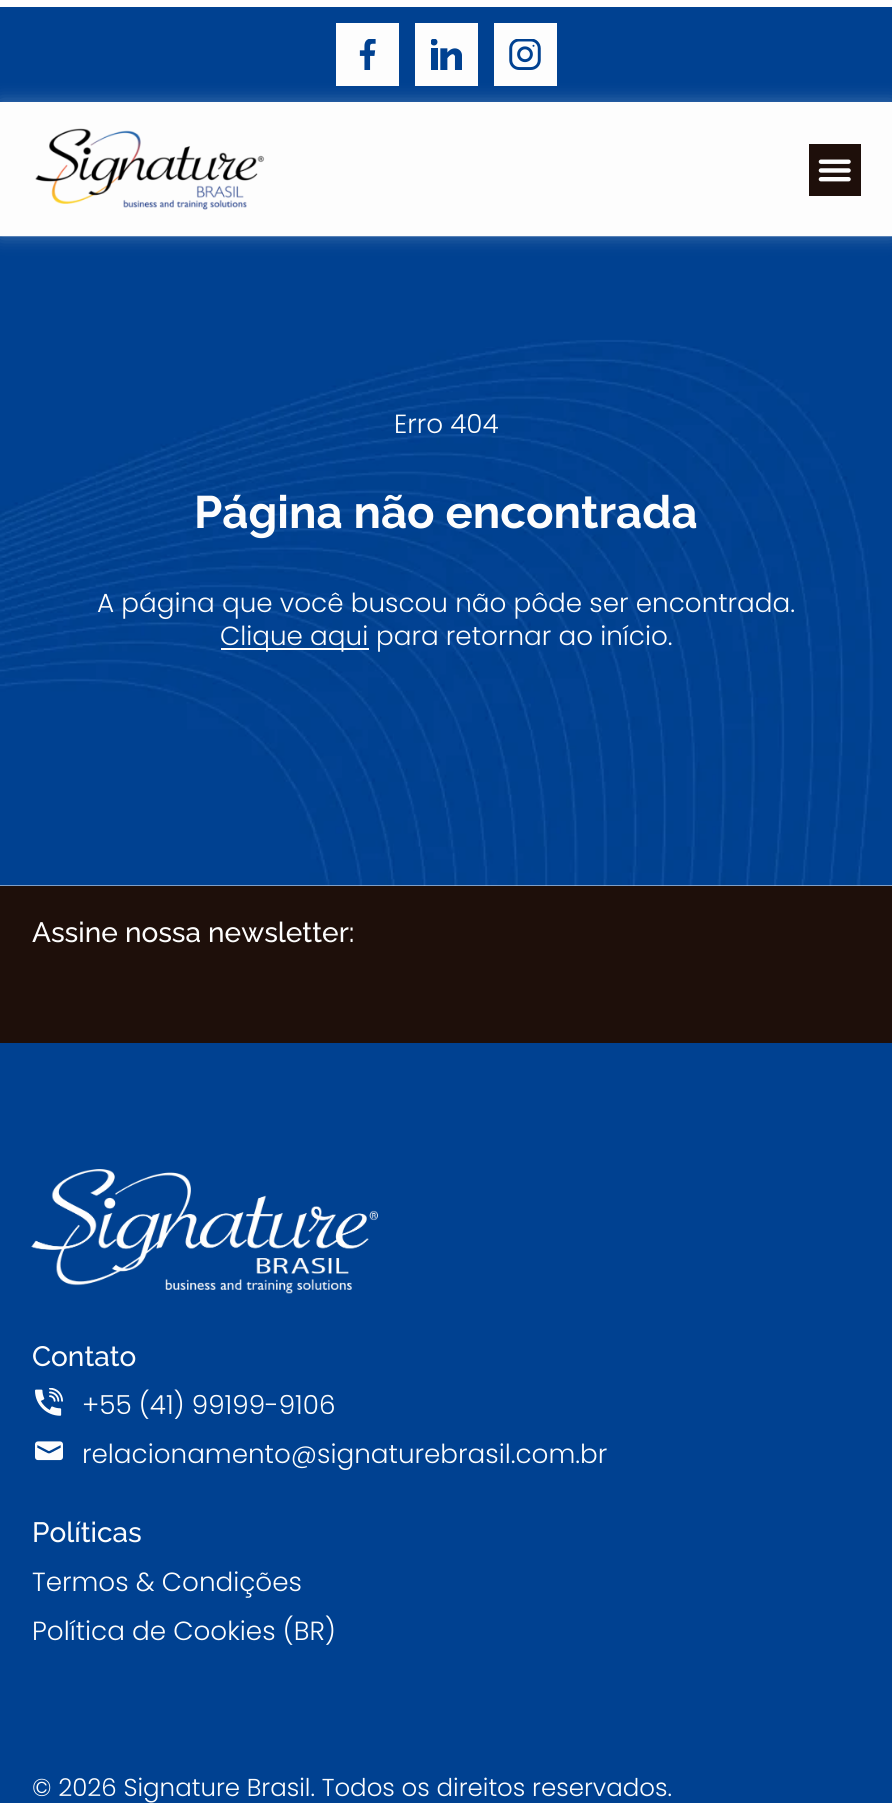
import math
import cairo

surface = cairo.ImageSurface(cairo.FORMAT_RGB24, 892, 1803)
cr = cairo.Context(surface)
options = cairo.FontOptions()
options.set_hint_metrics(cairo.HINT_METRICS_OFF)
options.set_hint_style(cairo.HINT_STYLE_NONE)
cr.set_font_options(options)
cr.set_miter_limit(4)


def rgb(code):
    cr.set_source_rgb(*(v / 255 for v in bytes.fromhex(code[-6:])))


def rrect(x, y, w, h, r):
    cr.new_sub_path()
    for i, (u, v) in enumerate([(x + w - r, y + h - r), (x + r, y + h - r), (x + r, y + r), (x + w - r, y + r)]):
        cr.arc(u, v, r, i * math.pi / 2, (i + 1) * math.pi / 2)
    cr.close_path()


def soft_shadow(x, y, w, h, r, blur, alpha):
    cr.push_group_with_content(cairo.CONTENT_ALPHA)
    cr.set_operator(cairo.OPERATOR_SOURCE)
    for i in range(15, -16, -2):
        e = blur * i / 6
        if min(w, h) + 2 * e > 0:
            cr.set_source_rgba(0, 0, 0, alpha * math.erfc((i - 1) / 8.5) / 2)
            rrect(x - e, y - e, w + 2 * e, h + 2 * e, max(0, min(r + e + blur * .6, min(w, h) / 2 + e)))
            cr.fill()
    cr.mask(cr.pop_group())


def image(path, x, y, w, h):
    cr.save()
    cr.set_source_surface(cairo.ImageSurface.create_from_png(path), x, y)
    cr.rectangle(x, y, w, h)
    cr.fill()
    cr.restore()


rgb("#fdfdfd")
cr.paint()
rgb("#004191")
cr.rectangle(0, 7, 892, 95)
cr.fill()
rgb("#fdfdfd")
cr.rectangle(336, 23, 63, 63)
cr.fill()
image("img/1.png", 359, 39, 17, 31)
cr.rectangle(415, 23, 63, 63)
cr.fill()
image("img/2.png", 431, 39, 31, 31)
cr.rectangle(494, 23, 63, 63)
cr.fill()
image("img/3.png", 509, 39, 32, 31)
image("img/6.png", 0, 236, 892, 650)
cr.save()
cr.set_fill_rule(cairo.FILL_RULE_EVEN_ODD)
cr.new_path()
cr.move_to(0, 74)
cr.line_to(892, 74)
cr.line_to(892, 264)
cr.line_to(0, 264)
cr.close_path()
cr.move_to(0, 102)
cr.line_to(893, 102)
cr.line_to(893, 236)
cr.line_to(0, 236)
cr.close_path()
cr.clip()
rgb("#fdfdfd")
soft_shadow(0, 102, 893, 134, 0, 9, 0.27)
cr.restore()
image("img/4.png", 35, 128, 230, 82)
rgb("#1e0f0a")
cr.rectangle(809, 144, 52, 52)
cr.fill()
image("img/5.png", 818, 159, 33, 23)
for x, y, w, h, color in [
    (221, 648, 148, 2, "#ffffff"),
    (0, 886, 892, 157, "#1e0f0a"),
    (0, 1043, 892, 760, "#004191"),
]:
    rgb(color)
    cr.rectangle(x, y, w, h)
    cr.fill()
image("img/7.png", 31, 1169, 347, 125)
image("img/8.png", 35, 1388, 28, 28)
image("img/9.png", 35, 1441, 28, 20)
cr.select_font_face("Poppins Light")
cr.set_font_size(26.25)
rgb("#fdfdfd")
cr.move_to(394, 433)
cr.show_text("Erro 404")
cr.select_font_face("Raleway", cairo.FONT_SLANT_NORMAL, cairo.FONT_WEIGHT_BOLD)
cr.set_font_size(45.5)
cr.move_to(194, 528)
cr.show_text("Página não encontrada")
cr.select_font_face("Poppins Light")
cr.set_font_size(26.25)
for x, y, s in [
    (97, 612, "A página que você buscou não pôde ser encontrada."),
    (220, 645, "Clique aqui"),
    (376, 645, "para retornar ao início."),
]:
    cr.move_to(x, y)
    cr.show_text(s)
cr.select_font_face("Raleway Medium")
cr.set_font_size(28)
cr.move_to(32, 942)
cr.show_text("Assine nossa newsletter:")
cr.move_to(32, 1366)
cr.show_text("Contato")
cr.select_font_face("Poppins Light")
cr.set_font_size(26.25)
cr.move_to(82, 1414)
cr.show_text("+55 (41) 99199-9106")
cr.move_to(82, 1463)
cr.show_text("relacionamento@signaturebrasil.com.br")
cr.select_font_face("Raleway Medium")
cr.set_font_size(28)
cr.move_to(32, 1542)
cr.show_text("Políticas")
cr.select_font_face("Poppins Light")
cr.set_font_size(26.25)
cr.move_to(32, 1591)
cr.show_text("Termos & Condições")
cr.move_to(32, 1640)
cr.show_text("Política de Cookies (BR)")
cr.set_font_size(24.5)
cr.move_to(32, 1796)
cr.show_text("© 2026 Signature Brasil. Todos os direitos reservados.")
surface.write_to_png("page.png")
